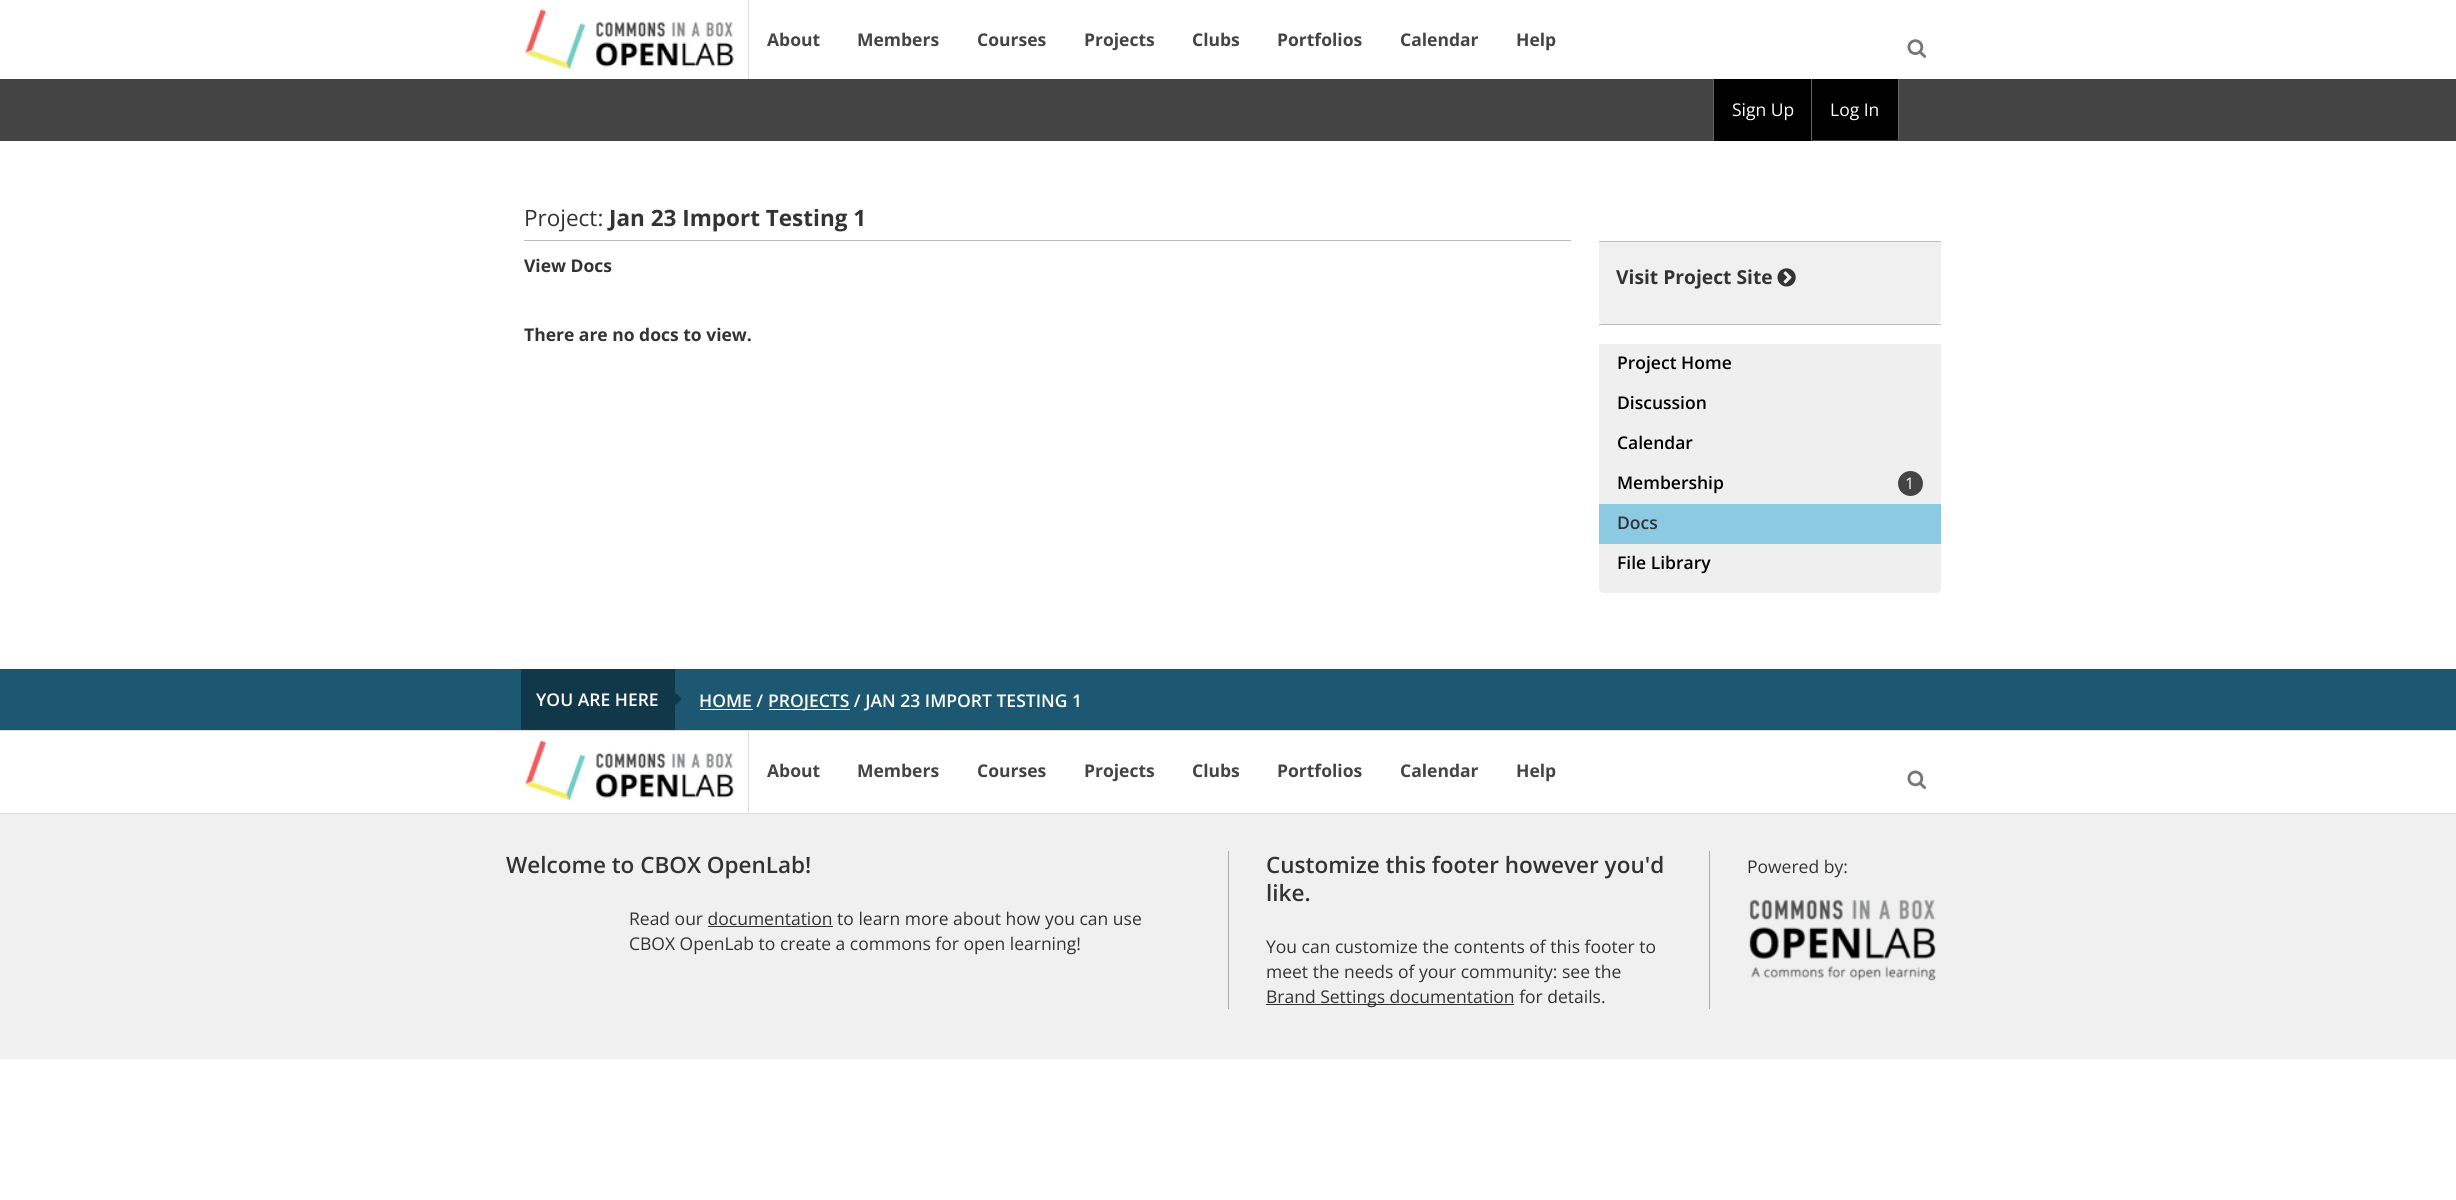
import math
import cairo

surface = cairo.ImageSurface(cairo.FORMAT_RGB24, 2456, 1200)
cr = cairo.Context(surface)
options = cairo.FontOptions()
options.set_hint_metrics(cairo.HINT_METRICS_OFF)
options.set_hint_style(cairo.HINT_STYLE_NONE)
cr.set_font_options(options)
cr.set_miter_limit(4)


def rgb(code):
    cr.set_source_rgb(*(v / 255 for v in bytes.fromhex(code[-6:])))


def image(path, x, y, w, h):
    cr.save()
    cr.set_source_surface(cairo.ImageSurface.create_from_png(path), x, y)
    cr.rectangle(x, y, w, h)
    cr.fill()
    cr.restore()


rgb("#ffffff")
cr.paint()
rgb("#dddddd")
cr.rectangle(748, 0, 1, 81)
cr.fill()
image("img/1.png", 525, 8, 209, 62)
image("img/2.png", 1907, 39, 19, 19)
rgb("#bbbbbb")
cr.rectangle(524, 240, 1047, 1)
cr.fill()
rgb("#f0f0f0")
cr.new_path()
cr.move_to(1599, 241)
cr.line_to(1941, 241)
cr.line_to(1941, 319)
cr.curve_to(1941, 322, 1939, 324, 1936, 324)
cr.line_to(1604, 324)
cr.curve_to(1601, 324, 1599, 322, 1599, 319)
cr.close_path()
cr.fill()
rgb("#bbbbbb")
cr.rectangle(1599, 241, 342, 1)
cr.fill()
image("img/3.png", 1777, 268, 19, 19)
cr.rectangle(1599, 324, 342, 1)
cr.fill()
rgb("#f0f0f0")
cr.new_path()
cr.move_to(1599, 344)
cr.line_to(1941, 344)
cr.line_to(1941, 588)
cr.curve_to(1941, 591, 1939, 593, 1936, 593)
cr.line_to(1604, 593)
cr.curve_to(1601, 593, 1599, 591, 1599, 588)
cr.close_path()
cr.fill()
cr.set_source_rgba(0.937, 0.937, 0.937, 0.8)
cr.new_path()
cr.move_to(1599, 344)
cr.line_to(1941, 344)
cr.line_to(1941, 588)
cr.curve_to(1941, 591, 1939, 593, 1936, 593)
cr.line_to(1604, 593)
cr.curve_to(1601, 593, 1599, 591, 1599, 588)
cr.close_path()
cr.fill()
rgb("#444444")
cr.arc(1910.5, 483.5, 12.5, 0, 2 * math.pi)
cr.fill()
for x, y, w, h, color in [
    (1599, 504, 342, 40, "#8ccae4"),
    (0, 669, 2456, 61, "#1c5871"),
    (521, 669, 154, 61, "#113849"),
]:
    rgb(color)
    cr.rectangle(x, y, w, h)
    cr.fill()
image("img/4.png", 675, 693, 7, 12)
for x, y, w, h, color in [
    (700, 709, 53, 1, "#ffffff"),
    (769, 709, 81, 1, "#ffffff"),
    (0, 730, 2456, 1, "#dddddd"),
    (0, 813, 2456, 1, "#dddddd"),
    (748, 731, 1, 82, "#dddddd"),
]:
    rgb(color)
    cr.rectangle(x, y, w, h)
    cr.fill()
image("img/5.png", 525, 740, 209, 62)
image("img/6.png", 1907, 770, 19, 20)
for x, y, w, h, color in [
    (0, 79, 2456, 62, "#444444"),
    (1714, 79, 99, 62, "#000000"),
    (1811, 79, 1, 62, "#666666"),
    (1713, 79, 1, 62, "#666666"),
    (1813, 79, 85, 61, "#000000"),
    (1898, 79, 1, 61, "#666666"),
    (0, 814, 2456, 245, "#f0f0f0"),
    (1228, 851, 1, 158, "#aaaaaa"),
    (708, 926, 125, 1, "#333333"),
    (1709, 851, 1, 158, "#aaaaaa"),
    (1266, 1004, 248, 1, "#333333"),
]:
    rgb(color)
    cr.rectangle(x, y, w, h)
    cr.fill()
image("img/7.png", 1748, 899, 188, 82)
cr.select_font_face("Open Sans", cairo.FONT_SLANT_NORMAL, cairo.FONT_WEIGHT_BOLD)
cr.set_font_size(17.5)
rgb("#444444")
for x, y, s in [
    (767, 46, "About"),
    (857, 46, "Members"),
    (977, 46, "Courses"),
    (1084, 46, "Projects"),
    (1192, 46, "Clubs"),
    (1277, 46, "Portfolios"),
    (1400, 46, "Calendar"),
    (1516, 46, "Help"),
]:
    cr.move_to(x, y)
    cr.show_text(s)
cr.select_font_face("Open Sans")
cr.set_font_size(22.5)
rgb("#333333")
cr.move_to(524, 226)
cr.show_text("Project:")
cr.select_font_face("Open Sans", cairo.FONT_SLANT_NORMAL, cairo.FONT_WEIGHT_BOLD)
cr.move_to(609, 226)
cr.show_text("Jan 23 Import Testing 1")
cr.set_font_size(17.5)
cr.move_to(524, 272)
cr.show_text("View Docs")
cr.move_to(524, 341)
cr.show_text("There are no docs to view.")
cr.set_font_size(19.25)
cr.move_to(1616, 284)
cr.show_text("Visit Project Site")
cr.select_font_face("Open Sans SemiBold")
cr.set_font_size(17.5)
rgb("#000000")
for x, y, s in [
    (1617, 369, "Project Home"),
    (1617, 409, "Discussion"),
    (1617, 449, "Calendar"),
    (1617, 489, "Membership"),
]:
    cr.move_to(x, y)
    cr.show_text(s)
cr.select_font_face("Open Sans")
cr.set_font_size(16)
rgb("#ffffff")
cr.move_to(1905, 489)
cr.show_text("1")
cr.select_font_face("Open Sans SemiBold")
cr.set_font_size(17.5)
rgb("#333333")
cr.move_to(1617, 529)
cr.show_text("Docs")
rgb("#000000")
cr.move_to(1617, 569)
cr.show_text("File Library")
rgb("#ffffff")
for x, y, s in [
    (536, 706, "YOU ARE HERE"),
    (699, 707, "HOME /"),
    (768, 707, "PROJECTS / JAN 23 IMPORT TESTING 1"),
]:
    cr.move_to(x, y)
    cr.show_text(s)
cr.select_font_face("Open Sans", cairo.FONT_SLANT_NORMAL, cairo.FONT_WEIGHT_BOLD)
rgb("#444444")
for x, y, s in [
    (767, 777, "About"),
    (857, 777, "Members"),
    (977, 777, "Courses"),
    (1084, 777, "Projects"),
    (1192, 777, "Clubs"),
    (1277, 777, "Portfolios"),
    (1400, 777, "Calendar"),
    (1516, 777, "Help"),
]:
    cr.move_to(x, y)
    cr.show_text(s)
cr.select_font_face("Open Sans")
rgb("#ffffff")
cr.move_to(1732, 116)
cr.show_text("Sign Up")
cr.move_to(1830, 116)
cr.show_text("Log In")
cr.select_font_face("Open Sans SemiBold")
cr.set_font_size(22.5)
rgb("#333333")
cr.move_to(506, 873)
cr.show_text("Welcome to CBOX OpenLab!")
cr.select_font_face("Open Sans")
cr.set_font_size(17.5)
cr.move_to(629, 925)
cr.show_text("Read our documentation to learn more about how you can use")
cr.move_to(629, 950)
cr.show_text("CBOX OpenLab to create a commons for open learning!")
cr.select_font_face("Open Sans SemiBold")
cr.set_font_size(22.5)
cr.move_to(1266, 873)
cr.show_text("Customize this footer however you'd")
cr.move_to(1266, 901)
cr.show_text("like.")
cr.select_font_face("Open Sans")
cr.set_font_size(17.5)
for x, y, s in [
    (1266, 953, "You can customize the contents of this footer to"),
    (1266, 978, "meet the needs of your community: see the"),
    (1266, 1003, "Brand Settings documentation for details."),
    (1747, 873, "Powered by:"),
]:
    cr.move_to(x, y)
    cr.show_text(s)
surface.write_to_png("page.png")
